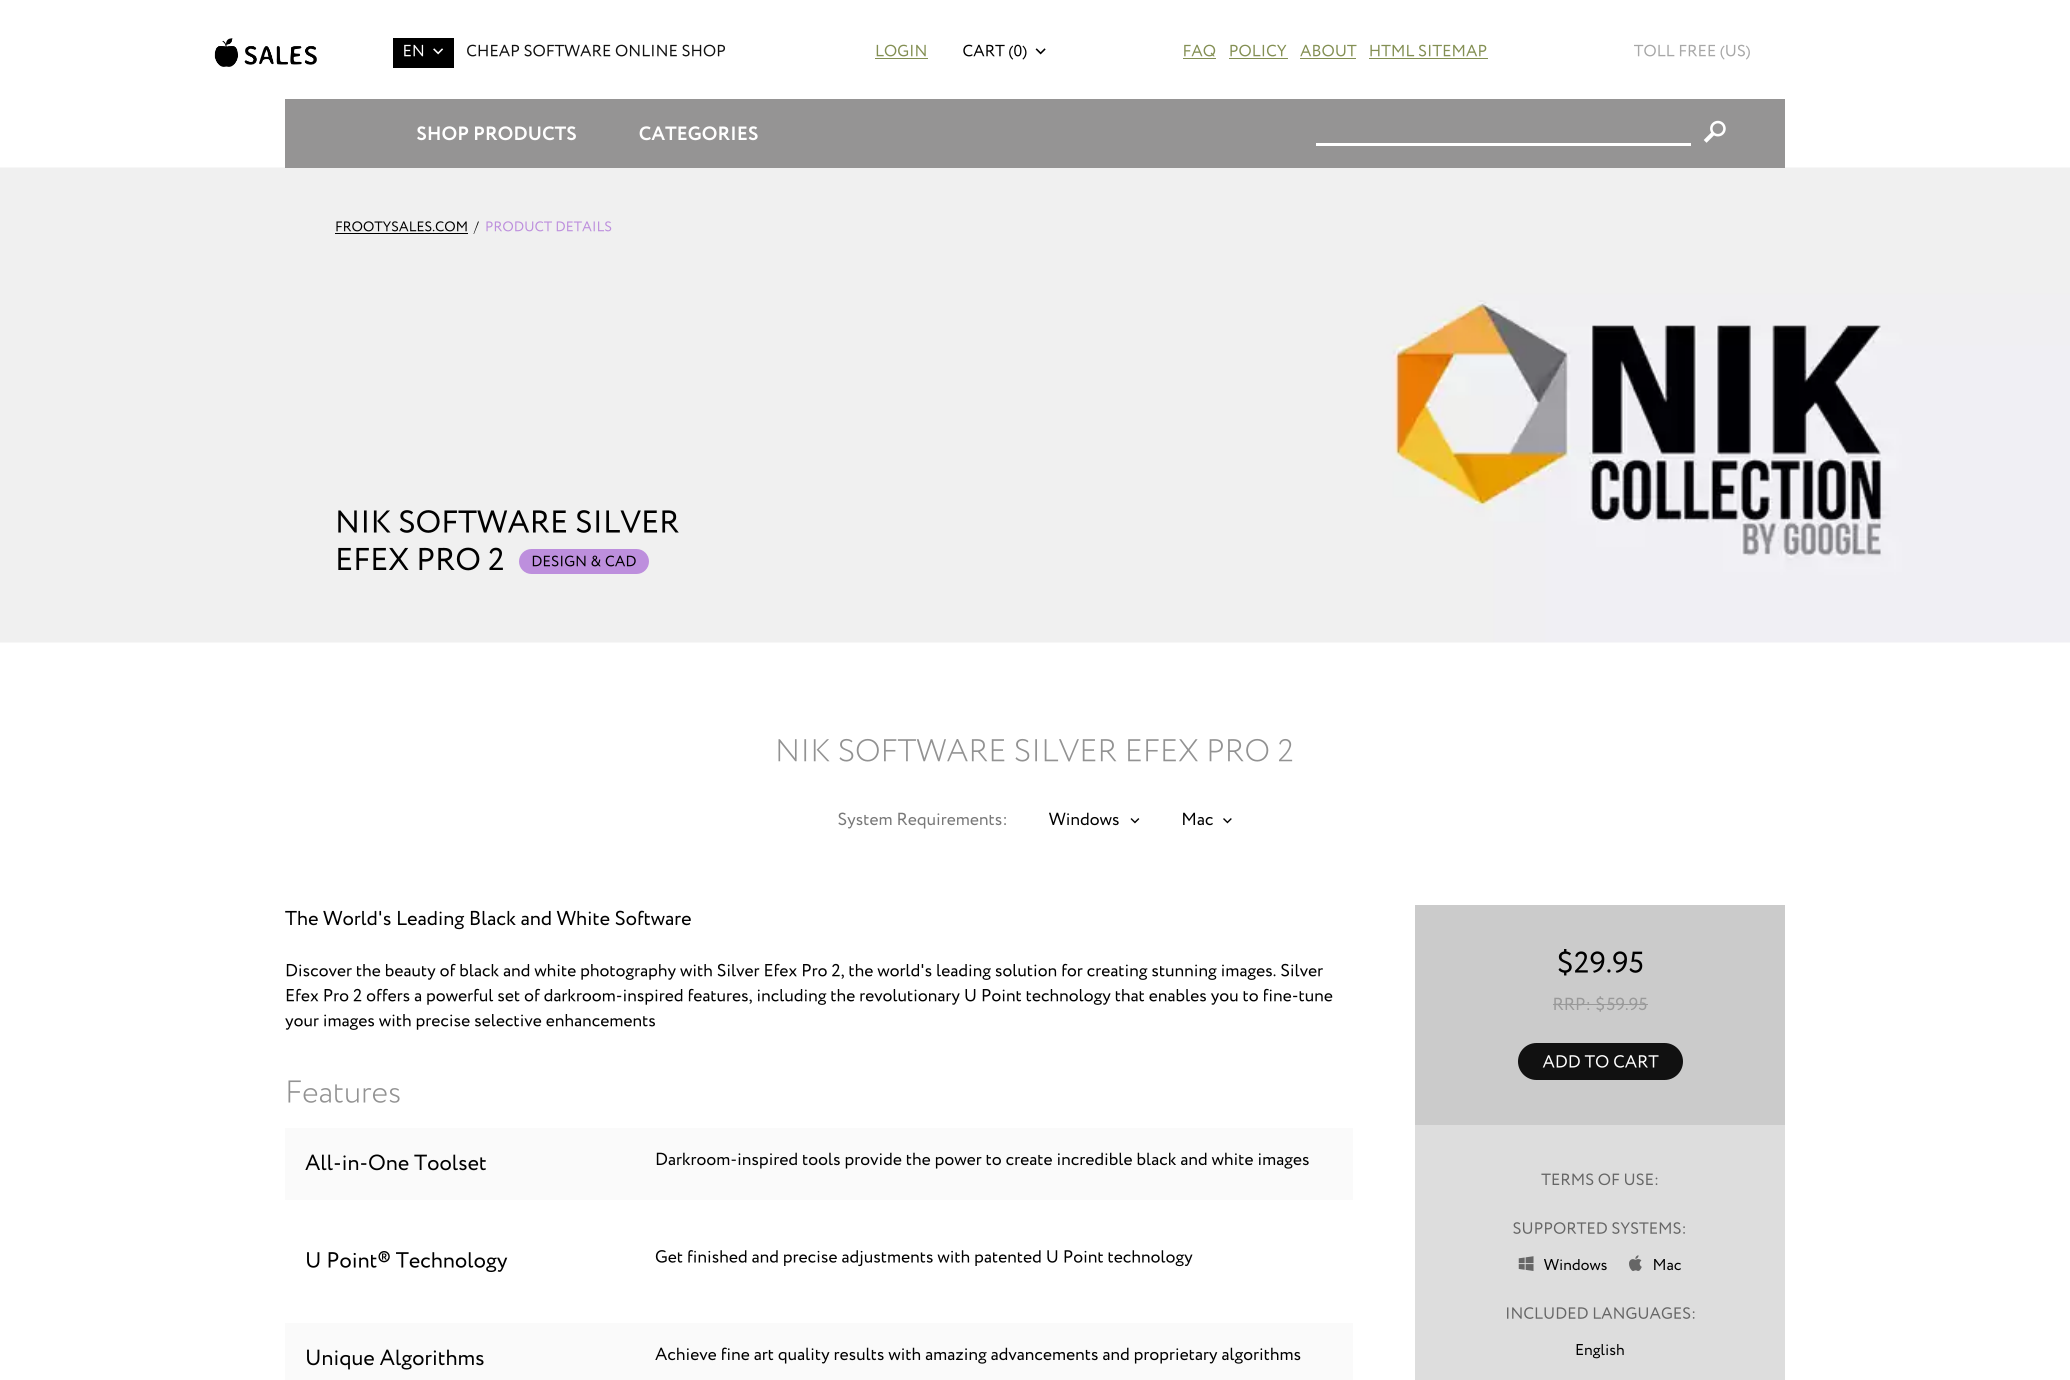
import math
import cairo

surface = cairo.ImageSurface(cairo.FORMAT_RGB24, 2070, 1380)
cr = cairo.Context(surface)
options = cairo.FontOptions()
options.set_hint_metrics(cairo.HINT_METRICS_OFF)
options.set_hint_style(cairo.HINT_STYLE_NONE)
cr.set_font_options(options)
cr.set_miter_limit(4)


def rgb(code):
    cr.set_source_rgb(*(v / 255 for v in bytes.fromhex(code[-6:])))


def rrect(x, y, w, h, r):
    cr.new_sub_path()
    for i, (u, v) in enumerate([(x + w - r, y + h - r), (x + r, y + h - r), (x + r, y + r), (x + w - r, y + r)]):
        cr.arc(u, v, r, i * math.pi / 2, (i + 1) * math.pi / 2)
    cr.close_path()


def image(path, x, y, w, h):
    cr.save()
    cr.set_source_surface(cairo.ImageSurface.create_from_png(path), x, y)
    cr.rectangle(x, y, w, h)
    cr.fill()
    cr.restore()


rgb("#ffffff")
cr.paint()
image("img/1.png", 214, 38, 103, 29)
rgb("#000000")
cr.rectangle(393, 38, 61, 30)
cr.fill()
image("img/2.png", 404, 44, 20, 13)
image("img/3.png", 433, 48, 11, 7)
image("img/4.png", 467, 44, 259, 13)
image("img/5.png", 876, 44, 50, 13)
rgb("#838f53")
cr.rectangle(875, 58, 53, 1)
cr.fill()
image("img/6.png", 963, 44, 64, 16)
image("img/7.png", 1035, 48, 11, 7)
image("img/8.png", 1184, 44, 32, 13)
cr.rectangle(1183, 58, 33, 1)
cr.fill()
image("img/9.png", 1230, 44, 57, 13)
cr.rectangle(1229, 58, 59, 1)
cr.fill()
image("img/10.png", 1300, 44, 57, 13)
cr.rectangle(1300, 58, 56, 1)
cr.fill()
image("img/11.png", 1370, 44, 117, 13)
cr.rectangle(1369, 58, 119, 1)
cr.fill()
image("img/12.png", 1634, 44, 116, 16)
image("img/16.png", 0, 167, 2070, 476)
rgb("#959494")
cr.rectangle(285, 99, 1500, 69)
cr.fill()
image("img/13.png", 417, 126, 159, 15)
image("img/14.png", 639, 126, 119, 15)
image("img/15.png", 1703, 120, 23, 23)
rgb("#ffffff")
cr.rectangle(1316, 143, 375, 3)
cr.fill()
image("img/17.png", 336, 221, 131, 11)
rgb("#000000")
cr.new_path()
cr.move_to(473.5, 234)
cr.line_to(474, 234)
cr.line_to(479, 221.5)
cr.line_to(478, 221.5)
cr.close_path()
cr.fill()
image("img/18.png", 486, 221, 126, 11)
cr.rectangle(335, 233, 133, 1)
cr.fill()
image("img/19.png", 338, 510, 341, 23)
image("img/20.png", 338, 547, 165, 24)
rgb("#bd8fdd")
rrect(519, 549, 130, 25, 12.5)
cr.fill()
image("img/21.png", 532, 555, 104, 12)
image("img/22.png", 778, 738, 515, 24)
image("img/23.png", 838, 812, 168, 17)
image("img/24.png", 1049, 812, 70, 14)
image("img/25.png", 1130, 818, 10, 6)
image("img/26.png", 1183, 812, 30, 14)
image("img/27.png", 1223, 818, 9, 6)
image("img/28.png", 285, 910, 406, 20)
image("img/29.png", 286, 963, 1037, 17)
image("img/30.png", 286, 988, 1047, 17)
image("img/31.png", 285, 1014, 370, 16)
image("img/32.png", 288, 1080, 112, 23)
rgb("#fafafa")
cr.rectangle(285, 1128, 1068, 72)
cr.fill()
image("img/33.png", 305, 1154, 181, 17)
image("img/34.png", 656, 1152, 653, 17)
image("img/35.png", 307, 1251, 201, 22)
image("img/36.png", 655, 1250, 538, 17)
cr.rectangle(285, 1323, 1068, 57)
cr.fill()
image("img/37.png", 307, 1349, 177, 21)
image("img/38.png", 655, 1347, 646, 17)
rgb("#cbcbcb")
cr.rectangle(1415, 905, 370, 220)
cr.fill()
image("img/39.png", 1558, 949, 14, 27)
image("img/40.png", 1575, 951, 68, 22)
image("img/41.png", 1554, 996, 50, 16)
image("img/42.png", 1607, 997, 40, 14)
rgb("#999999")
cr.rectangle(1553, 1004, 53, 1)
cr.fill()
cr.rectangle(1606, 1004, 42, 1)
cr.fill()
rgb("#111111")
rrect(1518, 1043, 165, 37, 18.5)
cr.fill()
image("img/43.png", 1542, 1055, 117, 13)
rgb("#dddddd")
cr.rectangle(1415, 1125, 370, 255)
cr.fill()
image("img/44.png", 1541, 1173, 117, 13)
image("img/45.png", 1513, 1222, 172, 12)
image("img/46.png", 1518, 1256, 16, 15)
image("img/47.png", 1544, 1259, 63, 12)
image("img/48.png", 1629, 1255, 13, 16)
image("img/49.png", 1654, 1259, 27, 12)
image("img/50.png", 1507, 1307, 188, 12)
image("img/51.png", 1576, 1344, 48, 15)
surface.write_to_png("page.png")
